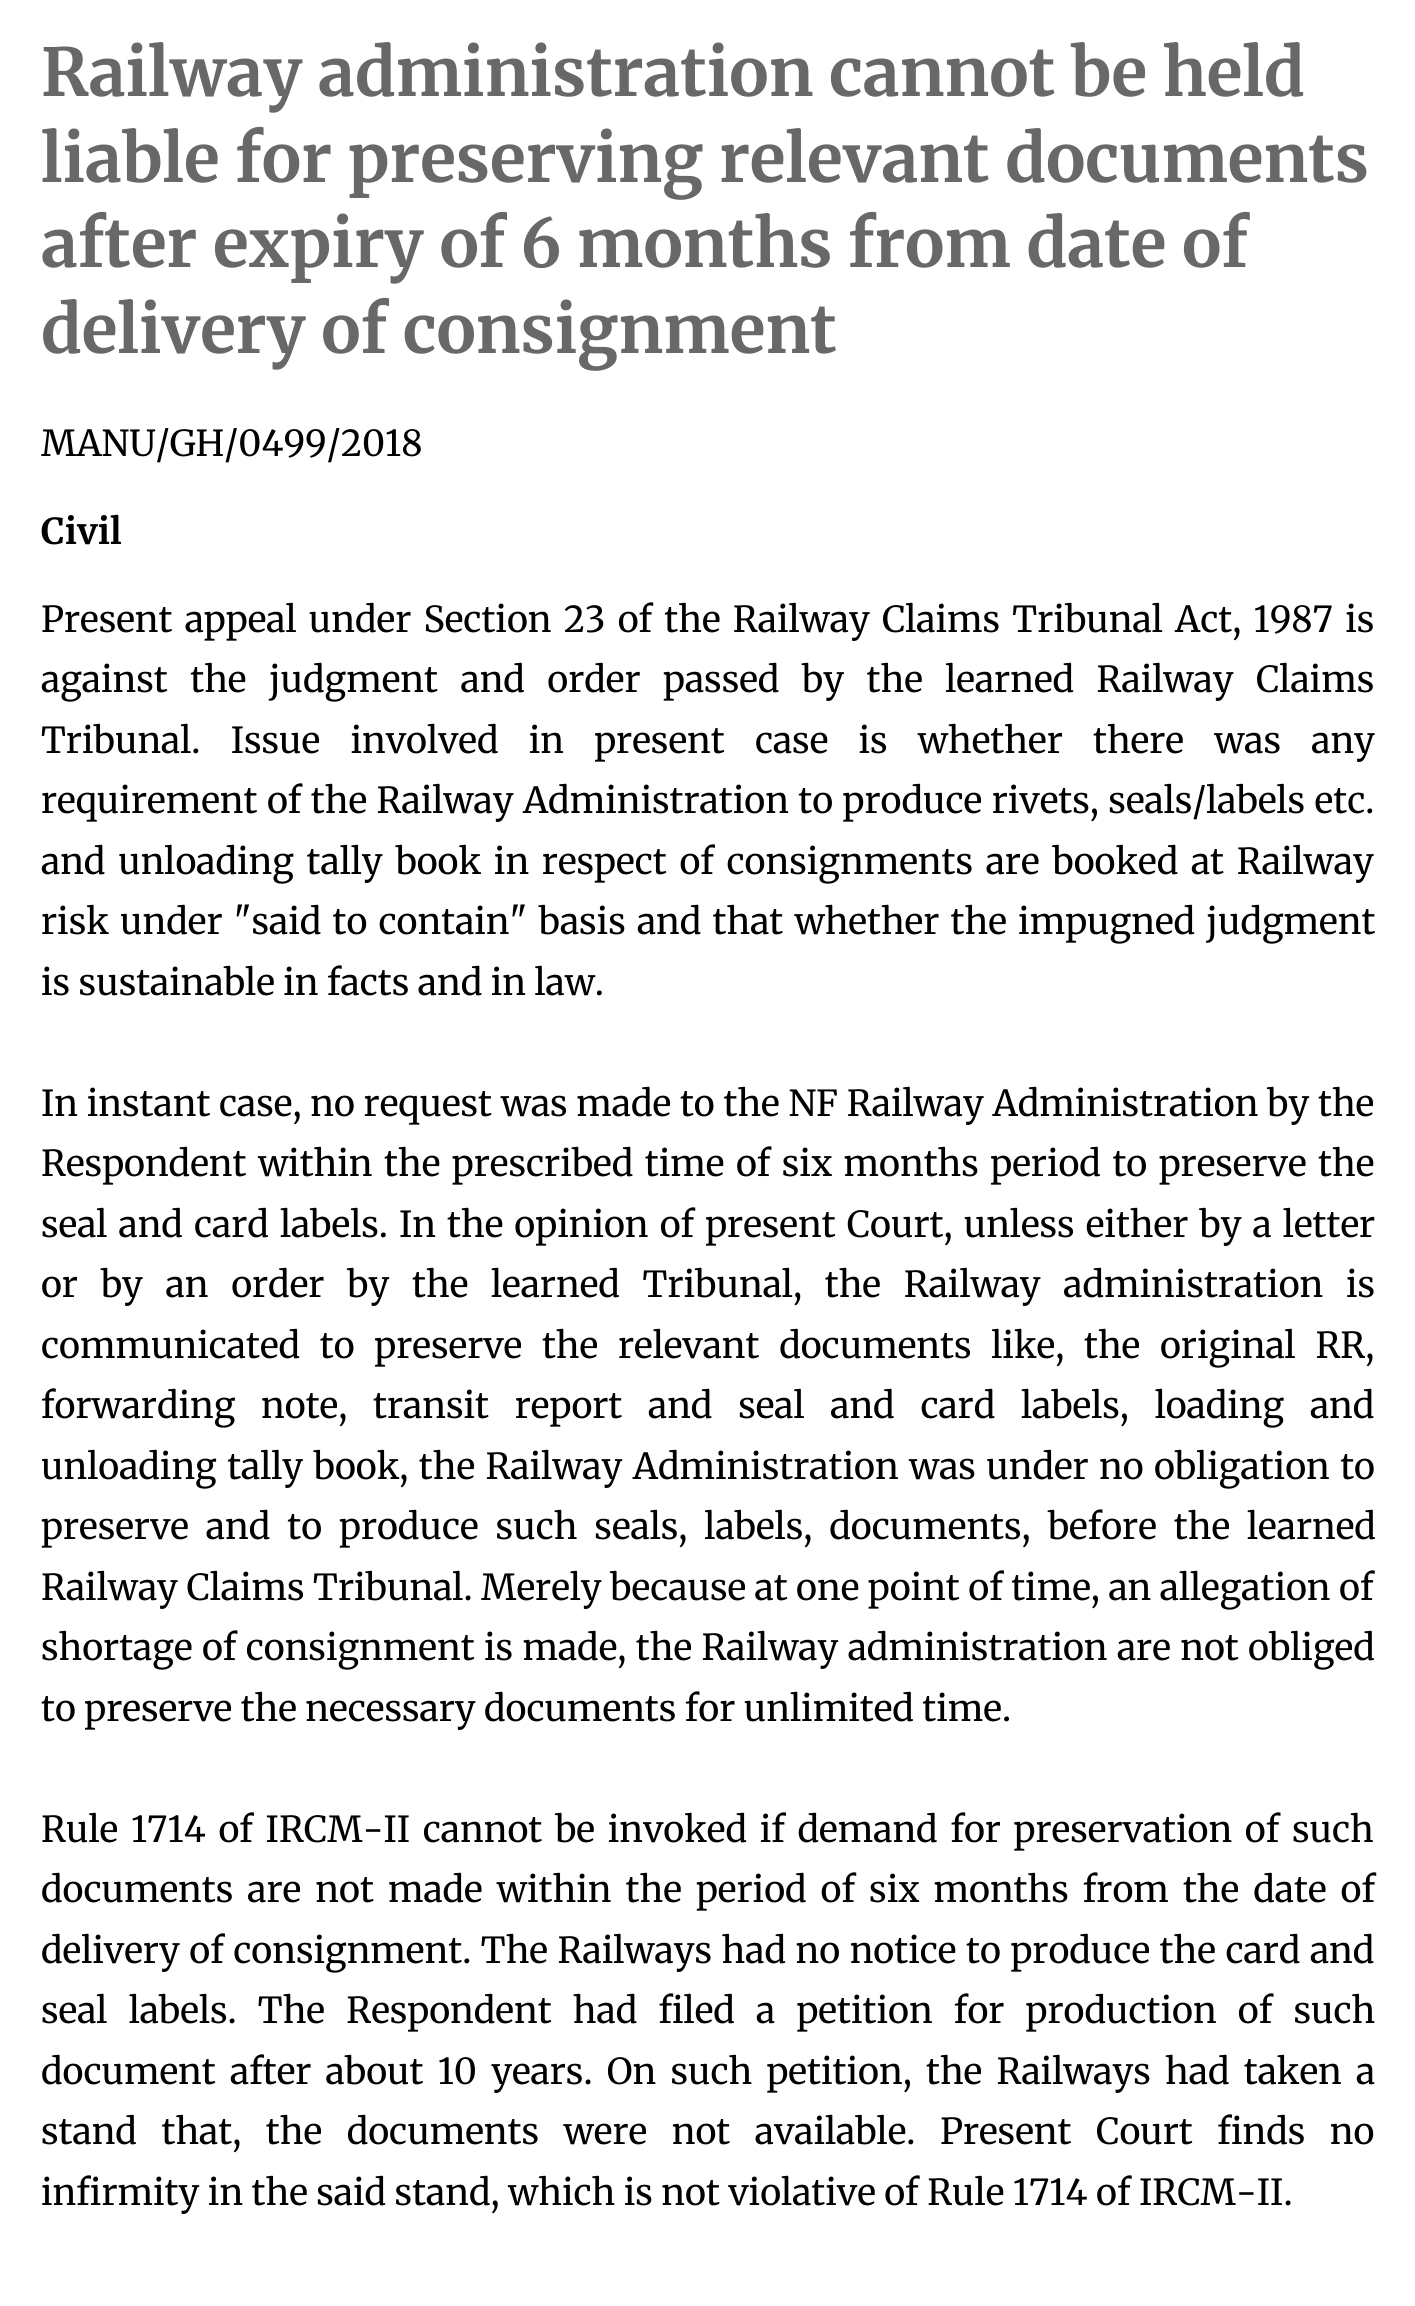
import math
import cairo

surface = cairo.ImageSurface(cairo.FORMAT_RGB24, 1415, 2306)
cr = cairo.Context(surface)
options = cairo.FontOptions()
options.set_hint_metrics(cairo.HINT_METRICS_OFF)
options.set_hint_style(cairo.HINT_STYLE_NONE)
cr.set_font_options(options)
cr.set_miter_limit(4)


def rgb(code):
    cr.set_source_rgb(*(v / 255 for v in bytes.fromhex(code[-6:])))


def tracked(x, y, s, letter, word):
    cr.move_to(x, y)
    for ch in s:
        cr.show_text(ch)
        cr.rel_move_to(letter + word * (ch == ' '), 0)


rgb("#ffffff")
cr.paint()
cr.select_font_face("Merriweather", cairo.FONT_SLANT_NORMAL, cairo.FONT_WEIGHT_BOLD)
cr.set_font_size(66)
rgb("#686868")
for x, y, s in [
    (41, 96, "Railway administration cannot be held"),
    (41, 182, "liable for preserving relevant documents"),
    (41, 267, "after expiry of 6 months from date of"),
    (41, 353, "delivery of consignment"),
]:
    cr.move_to(x, y)
    cr.show_text(s)
cr.select_font_face("Merriweather")
cr.set_font_size(35.75)
rgb("#000000")
cr.move_to(41, 456)
cr.show_text("MANU/GH/0499/2018")
cr.select_font_face("Merriweather", cairo.FONT_SLANT_NORMAL, cairo.FONT_WEIGHT_BOLD)
cr.move_to(41, 544)
cr.show_text("Civil")
cr.select_font_face("Merriweather")
tracked(41, 632, "Present appeal under Section 23 of the Railway Claims Tribunal Act, 1987 is", 0, 3.75)
tracked(41, 692, "against the judgment and order passed by the learned Railway Claims", 0, 14)
tracked(41, 753, "Tribunal. Issue involved in present case is whether there was any", 0, 21.75)
tracked(41, 813, "requirement of the Railway Administration to produce rivets, seals/labels etc.", 0, 1)
tracked(41, 874, "and unloading tally book in respect of consignments are booked at Railway", 0, 4.25)
tracked(41, 934, "risk under \"said to contain\" basis and that whether the impugned judgment", 0, 2.75)
cr.move_to(41, 995)
cr.show_text("is sustainable in facts and in law.")
tracked(41, 1116, "In instant case, no request was made to the NF Railway Administration by the", 0, 0.25)
tracked(41, 1176, "Respondent within the prescribed time of six months period to preserve the", 0, 3)
tracked(41, 1237, "seal and card labels. In the opinion of present Court, unless either by a letter", 0, 2.6)
tracked(41, 1297, "or by an order by the learned Tribunal, the Railway administration is", 0, 14.25)
tracked(41, 1358, "communicated to preserve the relevant documents like, the original RR,", 0, 11.25)
tracked(41, 1418, "forwarding note, transit report and seal and card labels, loading and", 0, 17.25)
tracked(41, 1479, "unloading tally book, the Railway Administration was under no obligation to", 0, 1.9)
tracked(41, 1539, "preserve and to produce such seals, labels, documents, before the learned", 0, 8.5)
cr.move_to(41, 1600)
cr.show_text("Railway Claims Tribunal. Merely because at one point of time, an allegation of")
tracked(41, 1660, "shortage of consignment is made, the Railway administration are not obliged", 0, 0.9)
cr.move_to(41, 1721)
cr.show_text("to preserve the necessary documents for unlimited time.")
tracked(41, 1842, "Rule 1714 of IRCM-II cannot be invoked if demand for preservation of such", 0, 4.25)
tracked(41, 1902, "documents are not made within the period of six months from the date of", 0, 5.6)
tracked(41, 1963, "delivery of consignment. The Railways had no notice to produce the card and", 0, 1.1)
tracked(41, 2023, "seal labels. The Respondent had filed a petition for production of such", 0, 12.75)
tracked(41, 2084, "document after about 10 years. On such petition, the Railways had taken a", 0, 5.75)
tracked(41, 2144, "stand that, the documents were not available. Present Court finds no", 0, 16.1)
cr.move_to(41, 2205)
cr.show_text("infirmity in the said stand, which is not violative of Rule 1714 of IRCM-II.")
surface.write_to_png("page.png")
